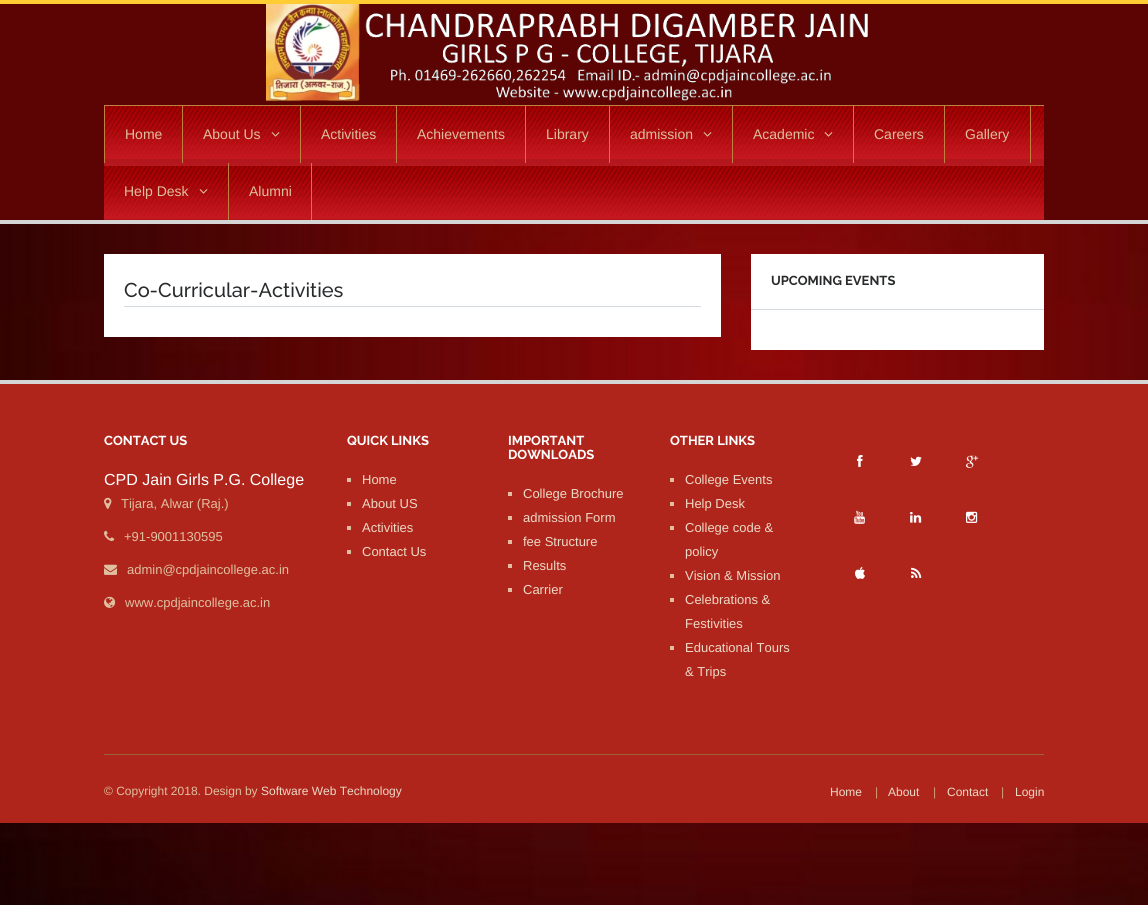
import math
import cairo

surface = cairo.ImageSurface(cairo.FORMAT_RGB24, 1148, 905)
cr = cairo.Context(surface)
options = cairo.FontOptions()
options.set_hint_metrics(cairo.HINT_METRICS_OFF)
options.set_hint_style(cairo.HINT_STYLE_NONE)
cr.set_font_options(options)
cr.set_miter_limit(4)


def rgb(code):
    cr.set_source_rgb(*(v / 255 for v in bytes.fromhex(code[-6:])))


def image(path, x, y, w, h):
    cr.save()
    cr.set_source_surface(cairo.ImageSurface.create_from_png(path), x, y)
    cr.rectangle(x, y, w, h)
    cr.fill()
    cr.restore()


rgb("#ffffff")
cr.paint()
image("img/1.png", 0, 224, 1148, 681)
for x, y, w, h, color in [
    (0, 0, 1148, 4, "#ffcc33"),
    (0, 4, 1148, 216, "#5c0403"),
    (0, 220, 1148, 4, "#d5d5d5"),
]:
    rgb(color)
    cr.rectangle(x, y, w, h)
    cr.fill()
image("img/2.png", 266, 4, 602, 98)
image("img/3.png", 104, 106, 940, 114)
for x, y, w, h, color in [
    (104, 105, 940, 1, "#bf8040"),
    (182, 106, 1, 57, "#bf8040"),
    (104, 106, 1, 57, "#bf8040"),
    (300, 106, 1, 57, "#bf8040"),
]:
    rgb(color)
    cr.rectangle(x, y, w, h)
    cr.fill()
image("img/4.png", 271, 132, 9, 5)
for x, y, w, h, color in [
    (396, 106, 1, 57, "#bf8040"),
    (525, 106, 1, 57, "#bf8040"),
    (609, 106, 1, 57, "#bf8040"),
    (732, 106, 1, 57, "#bf8040"),
]:
    rgb(color)
    cr.rectangle(x, y, w, h)
    cr.fill()
image("img/4.png", 703, 132, 9, 5)
cr.rectangle(853, 106, 1, 57)
cr.fill()
image("img/5.png", 824, 132, 9, 5)
for x, y, w, h, color in [
    (944, 106, 1, 57, "#bf8040"),
    (1030, 106, 1, 57, "#bf8040"),
    (228, 163, 1, 57, "#bf8040"),
]:
    rgb(color)
    cr.rectangle(x, y, w, h)
    cr.fill()
image("img/6.png", 199, 189, 9, 5)
for x, y, w, h, color in [
    (311, 163, 1, 57, "#bf8040"),
    (751, 254, 293, 96, "#ffffff"),
    (751, 309, 293, 1, "#d5dbe0"),
    (104, 254, 617, 83, "#ffffff"),
    (124, 306, 577, 1, "#d5dbe0"),
    (0, 384, 1148, 439, "#af251b"),
    (0, 380, 1148, 4, "#d5d5d5"),
]:
    rgb(color)
    cr.rectangle(x, y, w, h)
    cr.fill()
image("img/7.png", 104, 497, 8, 12)
image("img/8.png", 104, 530, 11, 11)
image("img/9.png", 104, 564, 13, 11)
image("img/10.png", 104, 596, 12, 12)
for x, y, w, h, color in [
    (347, 478, 4, 4, "#dfbf9f"),
    (347, 502, 4, 4, "#dfbf9f"),
    (347, 526, 4, 4, "#dfbf9f"),
    (347, 550, 4, 4, "#dfbf9f"),
    (508, 492, 4, 4, "#dfbf9f"),
    (508, 516, 4, 4, "#dfbf9f"),
    (508, 540, 4, 4, "#dfbf9f"),
    (508, 564, 4, 4, "#dfbf9f"),
    (508, 588, 4, 4, "#dfbf9f"),
    (670, 478, 4, 4, "#dfbf9f"),
    (670, 502, 4, 4, "#dfbf9f"),
    (670, 526, 4, 4, "#dfbf9f"),
    (670, 574, 4, 4, "#dfbf9f"),
    (670, 598, 4, 4, "#dfbf9f"),
    (670, 646, 4, 4, "#dfbf9f"),
]:
    rgb(color)
    cr.rectangle(x, y, w, h)
    cr.fill()
image("img/11.png", 857, 455, 6, 12)
image("img/12.png", 910, 456, 12, 10)
image("img/13.png", 966, 455, 13, 13)
image("img/14.png", 854, 510, 11, 14)
image("img/15.png", 910, 511, 12, 12)
image("img/16.png", 966, 511, 12, 12)
image("img/17.png", 855, 566, 10, 13)
image("img/18.png", 911, 567, 11, 11)
rgb("#996633")
cr.rectangle(104, 754, 940, 1)
cr.fill()
cr.select_font_face("Liberation Sans")
cr.set_font_size(14)
rgb("#dfbf9f")
for x, y, s in [
    (125, 139, "Home"),
    (203, 139, "About Us"),
    (321, 139, "Activities"),
    (417, 139, "Achievements"),
    (546, 139, "Library"),
    (630, 139, "admission"),
    (753, 139, "Academic"),
    (874, 139, "Careers"),
    (965, 139, "Gallery"),
    (124, 196, "Help Desk"),
    (249, 196, "Alumni"),
]:
    cr.move_to(x, y)
    cr.show_text(s)
cr.select_font_face("Raleway", cairo.FONT_SLANT_NORMAL, cairo.FONT_WEIGHT_BOLD)
cr.set_font_size(13)
rgb("#282a2c")
cr.move_to(771, 285)
cr.show_text("UPCOMING EVENTS")
cr.select_font_face("Raleway Medium")
cr.set_font_size(20)
cr.move_to(124, 297)
cr.show_text("Co-Curricular-Activities")
cr.select_font_face("Raleway", cairo.FONT_SLANT_NORMAL, cairo.FONT_WEIGHT_BOLD)
cr.set_font_size(13)
rgb("#ffffff")
cr.move_to(104, 445)
cr.show_text("CONTACT US")
cr.select_font_face("Liberation Sans")
cr.set_font_size(16)
cr.move_to(104, 485)
cr.show_text("CPD Jain Girls P.G. College")
cr.set_font_size(13)
rgb("#dfbf9f")
for x, y, s in [
    (121, 508, "Tijara, Alwar (Raj.)"),
    (124, 541, "+91-9001130595"),
    (127, 574, "admin@cpdjaincollege.ac.in"),
    (125, 607, "www.cpdjaincollege.ac.in"),
]:
    cr.move_to(x, y)
    cr.show_text(s)
cr.select_font_face("Raleway", cairo.FONT_SLANT_NORMAL, cairo.FONT_WEIGHT_BOLD)
rgb("#ffffff")
cr.move_to(347, 445)
cr.show_text("QUICK LINKS")
cr.select_font_face("Liberation Sans")
rgb("#ecd9c6")
for x, y, s in [
    (362, 484, "Home"),
    (362, 508, "About US"),
    (362, 532, "Activities"),
    (362, 556, "Contact Us"),
]:
    cr.move_to(x, y)
    cr.show_text(s)
cr.select_font_face("Raleway", cairo.FONT_SLANT_NORMAL, cairo.FONT_WEIGHT_BOLD)
rgb("#ffffff")
cr.move_to(508, 445)
cr.show_text("IMPORTANT")
cr.move_to(508, 459)
cr.show_text("DOWNLOADS")
cr.select_font_face("Liberation Sans")
rgb("#ecd9c6")
for x, y, s in [
    (523, 498, "College Brochure"),
    (523, 522, "admission Form"),
    (523, 546, "fee Structure"),
    (523, 570, "Results"),
    (523, 594, "Carrier"),
]:
    cr.move_to(x, y)
    cr.show_text(s)
cr.select_font_face("Raleway", cairo.FONT_SLANT_NORMAL, cairo.FONT_WEIGHT_BOLD)
rgb("#ffffff")
cr.move_to(670, 445)
cr.show_text("OTHER LINKS")
cr.select_font_face("Liberation Sans")
rgb("#ecd9c6")
for x, y, s in [
    (685, 484, "College Events"),
    (685, 508, "Help Desk"),
    (685, 532, "College code &"),
    (685, 556, "policy"),
    (685, 580, "Vision & Mission"),
    (685, 604, "Celebrations &"),
    (685, 628, "Festivities"),
    (685, 652, "Educational Tours"),
    (685, 676, "& Trips"),
]:
    cr.move_to(x, y)
    cr.show_text(s)
cr.set_font_size(12)
rgb("#dfbf9f")
cr.move_to(104, 795)
cr.show_text("© Copyright 2018. Design by")
rgb("#ecd9c6")
cr.move_to(261, 795)
cr.show_text("Software Web Technology")
cr.move_to(830, 796)
cr.show_text("Home")
rgb("#d0a171")
cr.move_to(875, 796)
cr.show_text("|")
rgb("#ecd9c6")
cr.move_to(888, 796)
cr.show_text("About")
rgb("#d0a171")
cr.move_to(933, 796)
cr.show_text("|")
rgb("#ecd9c6")
cr.move_to(947, 796)
cr.show_text("Contact")
rgb("#d0a171")
cr.move_to(1001, 796)
cr.show_text("|")
rgb("#ecd9c6")
cr.move_to(1015, 796)
cr.show_text("Login")
surface.write_to_png("page.png")
